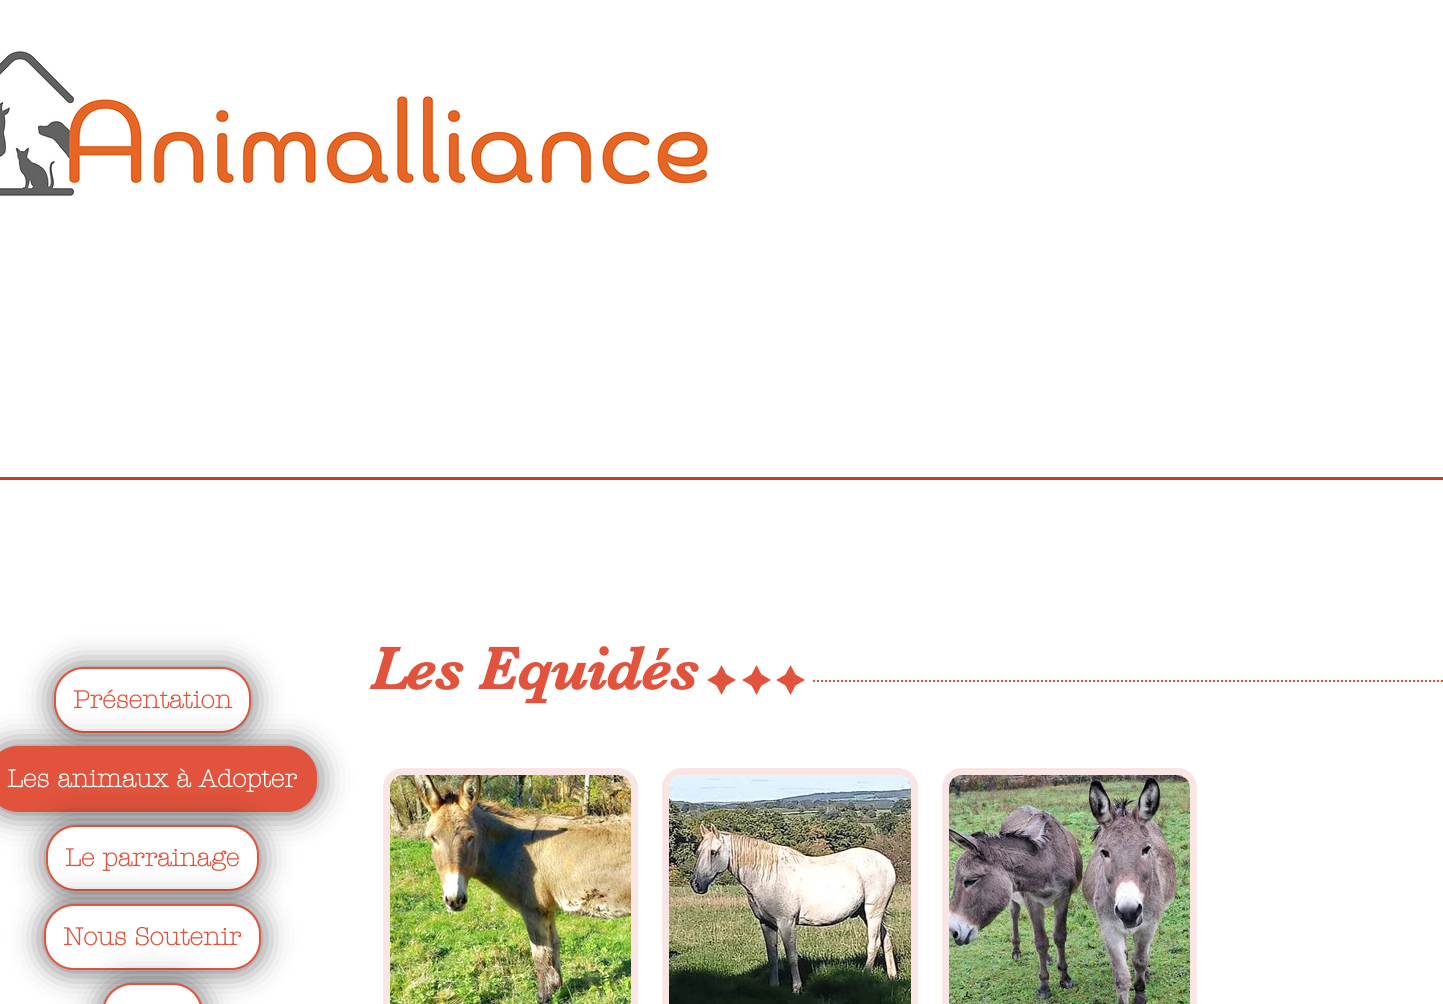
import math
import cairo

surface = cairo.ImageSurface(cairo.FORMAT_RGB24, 1443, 1004)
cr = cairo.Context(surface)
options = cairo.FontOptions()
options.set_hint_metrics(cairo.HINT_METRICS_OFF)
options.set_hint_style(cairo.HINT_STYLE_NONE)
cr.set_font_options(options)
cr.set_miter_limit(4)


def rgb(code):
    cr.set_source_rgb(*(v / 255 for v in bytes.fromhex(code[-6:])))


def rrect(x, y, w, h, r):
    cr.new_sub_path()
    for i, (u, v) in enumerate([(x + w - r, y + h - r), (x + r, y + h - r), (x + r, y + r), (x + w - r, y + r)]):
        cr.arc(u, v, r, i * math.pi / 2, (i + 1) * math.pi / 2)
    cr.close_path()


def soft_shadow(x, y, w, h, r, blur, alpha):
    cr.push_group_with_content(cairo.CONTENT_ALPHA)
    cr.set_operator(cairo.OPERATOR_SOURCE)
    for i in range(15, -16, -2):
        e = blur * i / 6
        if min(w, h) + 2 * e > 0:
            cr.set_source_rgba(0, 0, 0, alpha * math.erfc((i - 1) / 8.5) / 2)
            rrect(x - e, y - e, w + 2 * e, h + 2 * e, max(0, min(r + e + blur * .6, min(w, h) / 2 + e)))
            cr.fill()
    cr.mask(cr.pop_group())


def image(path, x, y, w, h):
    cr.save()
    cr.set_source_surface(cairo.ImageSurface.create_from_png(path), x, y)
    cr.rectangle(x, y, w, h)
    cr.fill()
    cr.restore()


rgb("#ffffff")
cr.paint()
image("img/1.png", 0, 51, 710, 145)
rgb("#ca3c28")
cr.rectangle(0, 477, 1443, 3)
cr.fill()
rgb("#e1533c")
cr.new_path()
cr.move_to(721.5, 665)
cr.line_to(726.5, 674.5)
cr.line_to(736, 680)
cr.line_to(726.5, 685.5)
cr.line_to(721.5, 695)
cr.line_to(716.5, 685.5)
cr.line_to(707, 680)
cr.line_to(716.5, 674.5)
cr.close_path()
cr.fill()
cr.new_path()
cr.move_to(756.5, 665)
cr.line_to(761.5, 674.5)
cr.line_to(771, 680)
cr.line_to(761.5, 685.5)
cr.line_to(756.5, 695)
cr.line_to(751.5, 685.5)
cr.line_to(742, 680)
cr.line_to(751.5, 674.5)
cr.close_path()
cr.move_to(790.5, 665)
cr.line_to(795.5, 674.5)
cr.line_to(805, 680)
cr.line_to(795.5, 685.5)
cr.line_to(790.5, 695)
cr.line_to(785.5, 685.5)
cr.line_to(776, 680)
cr.line_to(785.5, 674.5)
cr.close_path()
cr.fill()
cr.new_path()
cr.move_to(813, 681)
cr.line_to(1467, 681)
cr.set_dash([2, 2])
cr.stroke()
rgb("#000000")
soft_shadow(54, 668, 197, 66, 30, 15.5, 0.58)
rgb("#ffffff")
rrect(55, 668, 195, 64, 29)
cr.fill_preserve()
rgb("#e1533c")
cr.set_dash([])
cr.stroke()
rgb("#000000")
soft_shadow(-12, 747, 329, 66, 30, 15.5, 0.58)
rgb("#e1533c")
rrect(-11, 747, 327, 64, 29)
cr.fill_preserve()
cr.stroke()
rgb("#000000")
soft_shadow(46, 826, 213, 66, 30, 15.5, 0.58)
rgb("#ffffff")
rrect(47, 826, 211, 64, 29)
cr.fill_preserve()
rgb("#e1533c")
cr.stroke()
rgb("#000000")
soft_shadow(44, 905, 217, 66, 30, 15.5, 0.58)
rgb("#ffffff")
rrect(45, 905, 215, 64, 29)
cr.fill_preserve()
rgb("#e1533c")
cr.stroke()
rgb("#000000")
soft_shadow(102, 984, 101, 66, 30, 15.5, 0.58)
rgb("#ffffff")
rrect(103, 984, 99, 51, 29)
cr.fill_preserve()
rgb("#e1533c")
cr.stroke()
rrect(386.5, 771.5, 248, 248, 16.5)
rgb("#f9e6e4")
cr.set_line_width(7)
cr.stroke()
image("img/2.png", 390, 775, 241, 229)
rrect(665.5, 771.5, 249, 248, 16.5)
cr.stroke()
image("img/3.png", 669, 775, 242, 229)
rrect(945.5, 771.5, 248, 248, 16.5)
cr.stroke()
image("img/4.png", 949, 775, 241, 229)
cr.select_font_face("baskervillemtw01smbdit", cairo.FONT_SLANT_NORMAL, cairo.FONT_WEIGHT_BOLD)
cr.set_font_size(61)
rgb("#e1533c")
cr.move_to(370, 689)
cr.show_text("Les Equidés")
cr.select_font_face("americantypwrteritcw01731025", cairo.FONT_SLANT_NORMAL, cairo.FONT_WEIGHT_BOLD)
cr.set_font_size(25)
cr.move_to(73, 708)
cr.show_text("Présentation")
rgb("#ffffff")
cr.move_to(7, 787)
cr.show_text("Les animaux à Adopter")
rgb("#e1533c")
cr.move_to(65, 866)
cr.show_text("Le parrainage")
cr.move_to(63, 945)
cr.show_text("Nous Soutenir")
surface.write_to_png("page.png")
